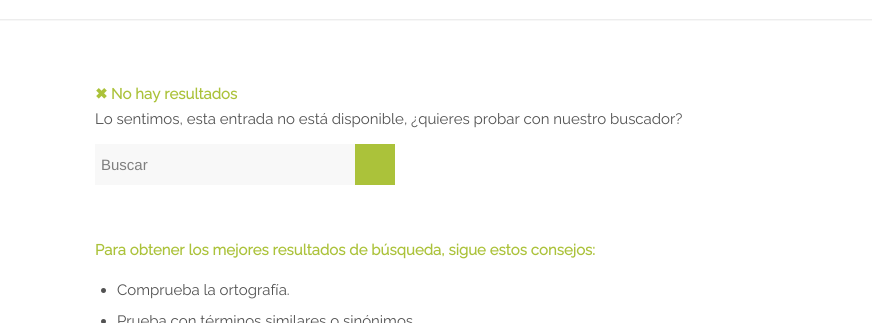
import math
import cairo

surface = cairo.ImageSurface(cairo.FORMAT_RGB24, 872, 323)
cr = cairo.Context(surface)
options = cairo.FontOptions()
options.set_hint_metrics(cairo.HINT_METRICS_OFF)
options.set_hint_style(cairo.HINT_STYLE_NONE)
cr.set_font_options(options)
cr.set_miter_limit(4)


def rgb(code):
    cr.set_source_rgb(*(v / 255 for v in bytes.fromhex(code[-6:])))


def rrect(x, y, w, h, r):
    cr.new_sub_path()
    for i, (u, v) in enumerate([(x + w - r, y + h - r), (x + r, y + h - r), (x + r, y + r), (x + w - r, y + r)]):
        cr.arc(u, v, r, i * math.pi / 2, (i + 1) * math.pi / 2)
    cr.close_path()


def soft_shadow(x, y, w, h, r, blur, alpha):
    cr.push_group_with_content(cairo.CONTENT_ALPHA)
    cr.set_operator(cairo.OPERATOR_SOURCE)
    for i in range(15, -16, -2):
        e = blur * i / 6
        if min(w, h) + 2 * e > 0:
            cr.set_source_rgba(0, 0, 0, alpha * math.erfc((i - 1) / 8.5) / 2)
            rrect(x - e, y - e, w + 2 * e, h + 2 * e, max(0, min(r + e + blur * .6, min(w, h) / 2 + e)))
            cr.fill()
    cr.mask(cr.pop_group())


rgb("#ffffff")
cr.paint()
cr.save()
cr.rectangle(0, 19, 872, 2)
cr.clip()
rgb("#000000")
soft_shadow(-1, -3, 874, 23, 0, 1, 0.1)
cr.restore()
rgb("#f8f8f8")
cr.rectangle(95, 144, 260, 41)
cr.fill()
rgb("#abc23a")
cr.rectangle(355, 144, 40, 41)
cr.fill()
rgb("#525252")
cr.arc(103.5, 290.5, 2.5, 0, 2 * math.pi)
cr.fill()
cr.arc(103.5, 321.5, 2.5, 0, 2 * math.pi)
cr.fill()
cr.select_font_face("DejaVu Sans", cairo.FONT_SLANT_NORMAL, cairo.FONT_WEIGHT_BOLD)
cr.set_font_size(15)
rgb("#abc23a")
cr.move_to(95, 99)
cr.show_text("✖")
cr.select_font_face("Raleway", cairo.FONT_SLANT_NORMAL, cairo.FONT_WEIGHT_BOLD)
cr.move_to(111, 99)
cr.show_text("No hay resultados")
cr.select_font_face("Raleway Thin")
rgb("#525252")
cr.move_to(95, 124)
cr.show_text("Lo sentimos, esta entrada no está disponible, ¿quieres probar con nuestro buscador?")
cr.select_font_face("Liberation Sans")
rgb("#7f7f7f")
cr.move_to(101, 170)
cr.show_text("Buscar")
cr.select_font_face("Raleway", cairo.FONT_SLANT_NORMAL, cairo.FONT_WEIGHT_BOLD)
rgb("#abc23a")
cr.move_to(95, 255)
cr.show_text("Para obtener los mejores resultados de búsqueda, sigue estos consejos:")
cr.select_font_face("Raleway Thin")
rgb("#525252")
cr.move_to(117, 295)
cr.show_text("Comprueba la ortografía.")
cr.move_to(117, 326)
cr.show_text("Prueba con términos similares o sinónimos")
surface.write_to_png("page.png")
